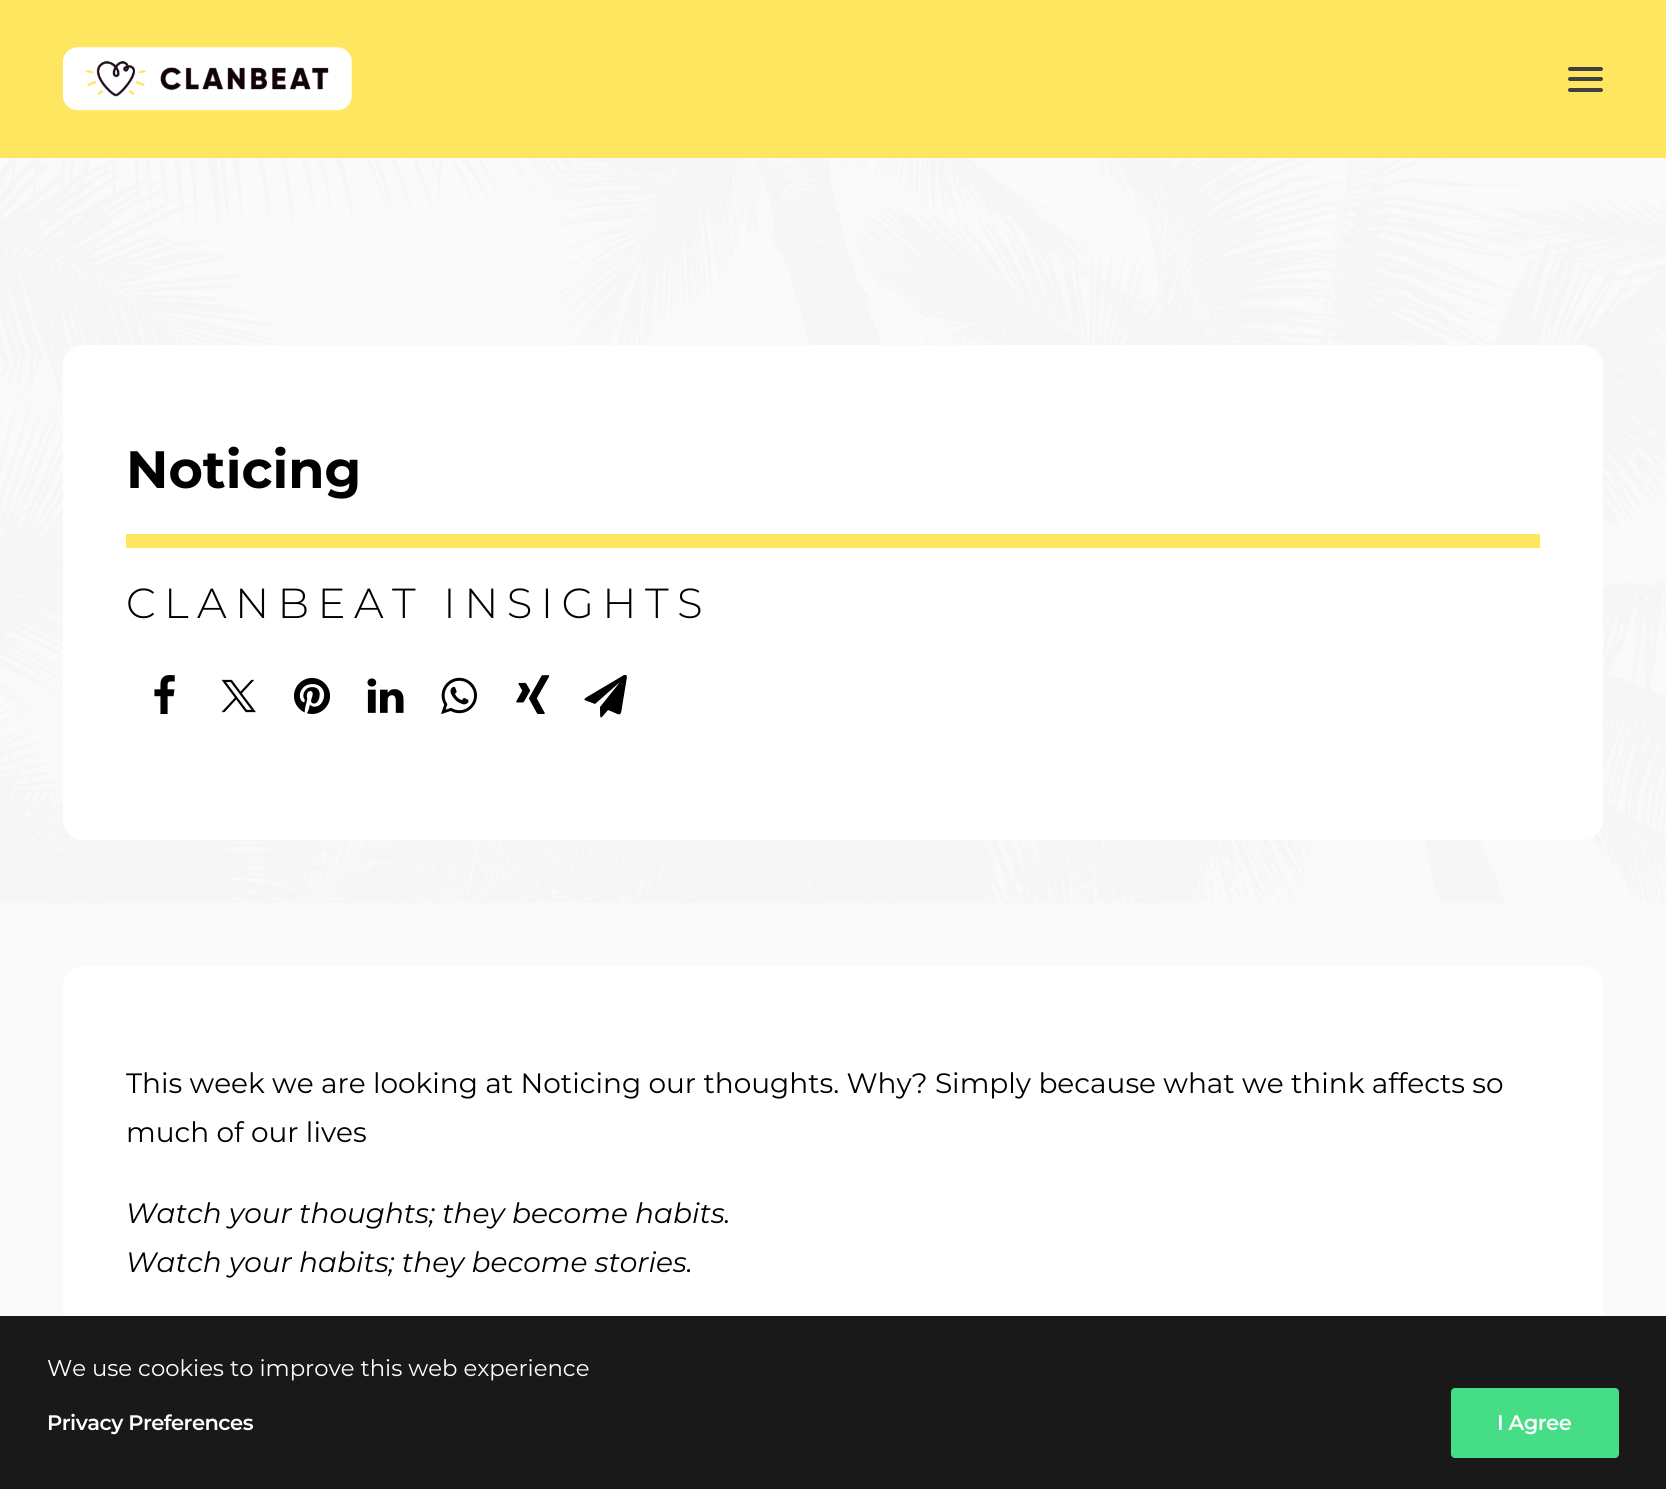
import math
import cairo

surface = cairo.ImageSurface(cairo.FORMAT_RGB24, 1666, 1489)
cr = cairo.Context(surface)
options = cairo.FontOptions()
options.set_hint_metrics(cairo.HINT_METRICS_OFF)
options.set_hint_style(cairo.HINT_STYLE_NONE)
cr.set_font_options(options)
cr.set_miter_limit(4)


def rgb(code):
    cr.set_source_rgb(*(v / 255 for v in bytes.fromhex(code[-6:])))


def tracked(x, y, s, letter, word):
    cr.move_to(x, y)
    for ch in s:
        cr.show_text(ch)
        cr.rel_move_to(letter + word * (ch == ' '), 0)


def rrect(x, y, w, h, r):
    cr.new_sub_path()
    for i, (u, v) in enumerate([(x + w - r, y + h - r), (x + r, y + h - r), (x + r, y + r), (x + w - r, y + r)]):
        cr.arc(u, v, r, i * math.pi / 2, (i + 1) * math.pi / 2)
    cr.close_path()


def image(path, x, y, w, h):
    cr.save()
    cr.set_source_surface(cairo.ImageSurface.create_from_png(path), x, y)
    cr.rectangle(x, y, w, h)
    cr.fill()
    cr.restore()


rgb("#ffffff")
cr.paint()
rgb("#fee661")
cr.rectangle(0, 0, 1666, 158)
cr.fill()
image("img/1.png", 63, 47, 289, 64)
rgb("#404040")
rrect(1568, 77, 35, 4, 2)
cr.fill()
rrect(1568, 67, 35, 4, 2)
cr.fill()
rrect(1568, 88, 35, 4, 2)
cr.fill()
image("img/2.png", 0, 158, 1666, 745)
rgb("#ffffff")
rrect(63, 345, 1540, 495, 21)
cr.fill()
rgb("#fee661")
cr.rectangle(126, 534, 1414, 14)
cr.fill()
image("img/3.png", 154, 675, 21, 39)
image("img/4.png", 221, 679, 35, 34)
image("img/5.png", 294, 678, 36, 36)
image("img/6.png", 367, 678, 37, 35)
image("img/7.png", 441, 677, 36, 38)
image("img/8.png", 516, 675, 34, 39)
rgb("#000000")
cr.new_path()
cr.move_to(626, 675)
cr.curve_to(628, 677, 626, 680, 626, 683)
cr.line_to(623, 701)
cr.curve_to(620, 718, 623, 716, 608, 710)
cr.curve_to(600, 719, 600, 722, 600, 707)
cr.line_to(620, 682)
cr.line_to(595, 704)
cr.curve_to(583, 699, 580, 701, 592, 694)
cr.line_to(624, 675)
cr.close_path()
cr.fill()
rgb("#fafafa")
cr.rectangle(0, 903, 1666, 586)
cr.fill()
rgb("#ffffff")
rrect(63, 966, 1540, 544, 21)
cr.fill()
cr.set_source_rgba(0, 0, 0, 0.9)
cr.rectangle(0, 1316, 1666, 173)
cr.fill()
rgb("#45dd85")
rrect(1451, 1388, 168, 70, 4)
cr.fill()
cr.select_font_face("Montserrat", cairo.FONT_SLANT_NORMAL, cairo.FONT_WEIGHT_BOLD)
cr.set_font_size(52.5)
rgb("#000000")
cr.move_to(126, 488)
cr.show_text("Noticing")
cr.select_font_face("Montserrat Light")
cr.set_font_size(42)
tracked(126, 618, "CLANBEAT INSIGHTS", 8.4, 0)
cr.select_font_face("Montserrat")
cr.set_font_size(28)
cr.move_to(126, 1093)
cr.show_text("This week we are looking at Noticing our thoughts. Why? Simply because what we think affects so")
cr.move_to(126, 1142)
cr.show_text("much of our lives")
cr.select_font_face("Montserrat", cairo.FONT_SLANT_ITALIC)
cr.move_to(126, 1223)
cr.show_text("Watch your thoughts; they become habits.")
cr.move_to(126, 1272)
cr.show_text("Watch your habits; they become stories.")
cr.select_font_face("Montserrat")
cr.set_font_size(22.75)
rgb("#ffffff")
cr.move_to(47, 1376)
cr.show_text("We use cookies to improve this web experience")
cr.select_font_face("Montserrat SemiBold")
cr.set_font_size(21)
tracked(47, 1430, "Privacy Preferences", -0.5, 0)
tracked(1497, 1430, "I Agree", -0.5, 0)
surface.write_to_png("page.png")
